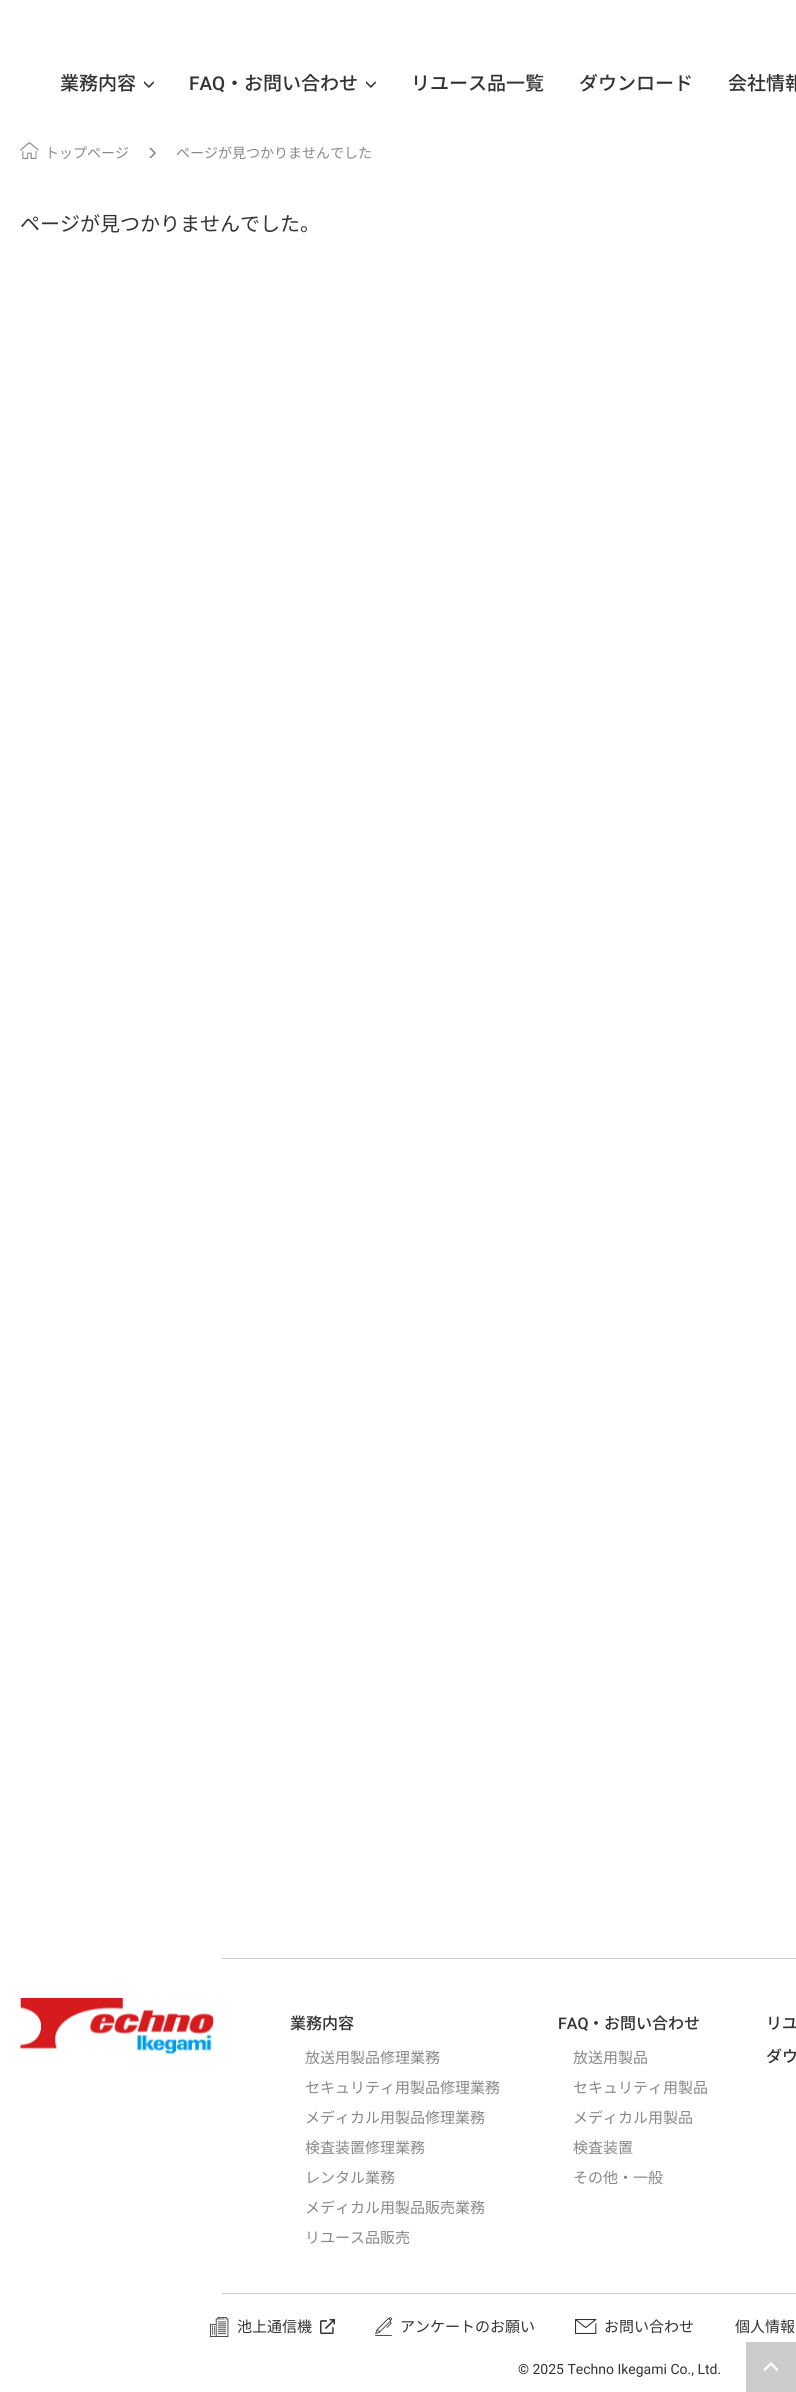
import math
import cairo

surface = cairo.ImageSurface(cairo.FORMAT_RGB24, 796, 2392)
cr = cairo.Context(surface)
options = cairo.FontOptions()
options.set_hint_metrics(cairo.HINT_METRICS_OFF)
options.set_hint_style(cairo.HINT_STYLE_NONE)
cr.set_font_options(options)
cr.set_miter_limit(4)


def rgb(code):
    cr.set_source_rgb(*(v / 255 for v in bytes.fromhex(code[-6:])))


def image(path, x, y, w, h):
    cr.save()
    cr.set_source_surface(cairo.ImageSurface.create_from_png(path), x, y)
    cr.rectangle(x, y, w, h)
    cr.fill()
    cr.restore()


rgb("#ffffff")
cr.paint()
image("img/1.png", 144, 81, 10, 7)
image("img/1.png", 366, 81, 10, 7)
image("img/2.png", 20, 142, 19, 17)
image("img/3.png", 149, 148, 7, 10)
rgb("#cccccc")
cr.rectangle(222, 1958, 574, 1)
cr.fill()
image("img/4.png", 20, 1998, 194, 56)
cr.rectangle(222, 2293, 574, 1)
cr.fill()
image("img/5.png", 210, 2317, 19, 20)
image("img/6.png", 320, 2319, 15, 15)
image("img/7.png", 375, 2317, 18, 19)
image("img/8.png", 575, 2319, 22, 15)
cr.rectangle(746, 2342, 50, 50)
cr.fill()
image("img/9.png", 764, 2362, 14, 10)
cr.select_font_face("Noto Sans JP Medium")
cr.set_font_size(19)
rgb("#333333")
cr.move_to(60, 90)
cr.show_text("業務内容")
cr.select_font_face("Roboto Medium")
cr.move_to(189, 90)
cr.show_text("FAQ")
cr.select_font_face("Noto Sans JP Medium")
for x, y, s in [
    (225, 90, "・お問い合わせ"),
    (411, 90, "リユース品一覧"),
    (579, 90, "ダウンロード"),
    (728, 90, "会社情報"),
]:
    cr.move_to(x, y)
    cr.show_text(s)
cr.select_font_face("Noto Sans JP")
cr.set_font_size(14)
rgb("#888888")
cr.move_to(45, 158)
cr.show_text("トップページ")
cr.move_to(176, 158)
cr.show_text("ページが見つかりませんでした")
cr.set_font_size(20)
rgb("#333333")
cr.move_to(20, 231)
cr.show_text("ページが見つかりませんでした。")
cr.select_font_face("Noto Sans JP Medium")
cr.set_font_size(16)
cr.move_to(290, 2029)
cr.show_text("業務内容")
cr.select_font_face("Noto Sans JP")
cr.set_font_size(15)
rgb("#888888")
for x, y, s in [
    (305, 2063, "放送用製品修理業務"),
    (305, 2093, "セキュリティ用製品修理業務"),
    (305, 2123, "メディカル用製品修理業務"),
    (305, 2153, "検査装置修理業務"),
    (305, 2183, "レンタル業務"),
    (305, 2213, "メディカル用製品販売業務"),
    (305, 2243, "リユース品販売"),
]:
    cr.move_to(x, y)
    cr.show_text(s)
cr.select_font_face("Roboto Medium")
cr.set_font_size(16)
rgb("#333333")
cr.move_to(558, 2029)
cr.show_text("FAQ")
cr.select_font_face("Noto Sans JP Medium")
cr.move_to(588, 2029)
cr.show_text("・お問い合わせ")
cr.select_font_face("Noto Sans JP")
cr.set_font_size(15)
rgb("#888888")
for x, y, s in [
    (573, 2063, "放送用製品"),
    (573, 2093, "セキュリティ用製品"),
    (573, 2123, "メディカル用製品"),
    (573, 2153, "検査装置"),
    (573, 2183, "その他・一般"),
]:
    cr.move_to(x, y)
    cr.show_text(s)
cr.select_font_face("Noto Sans JP Medium")
cr.set_font_size(16)
rgb("#333333")
cr.move_to(766, 2029)
cr.show_text("リユ")
cr.move_to(766, 2062)
cr.show_text("ダウ")
cr.select_font_face("Noto Sans JP")
cr.set_font_size(15)
for x, y, s in [
    (237, 2332, "池上通信機"),
    (400, 2332, "アンケートのお願い"),
    (604, 2332, "お問い合わせ"),
    (735, 2332, "個人情報"),
]:
    cr.move_to(x, y)
    cr.show_text(s)
cr.select_font_face("Roboto")
cr.set_font_size(14)
cr.move_to(518, 2374)
cr.show_text("© 2025 Techno Ikegami Co., Ltd.")
surface.write_to_png("page.png")
